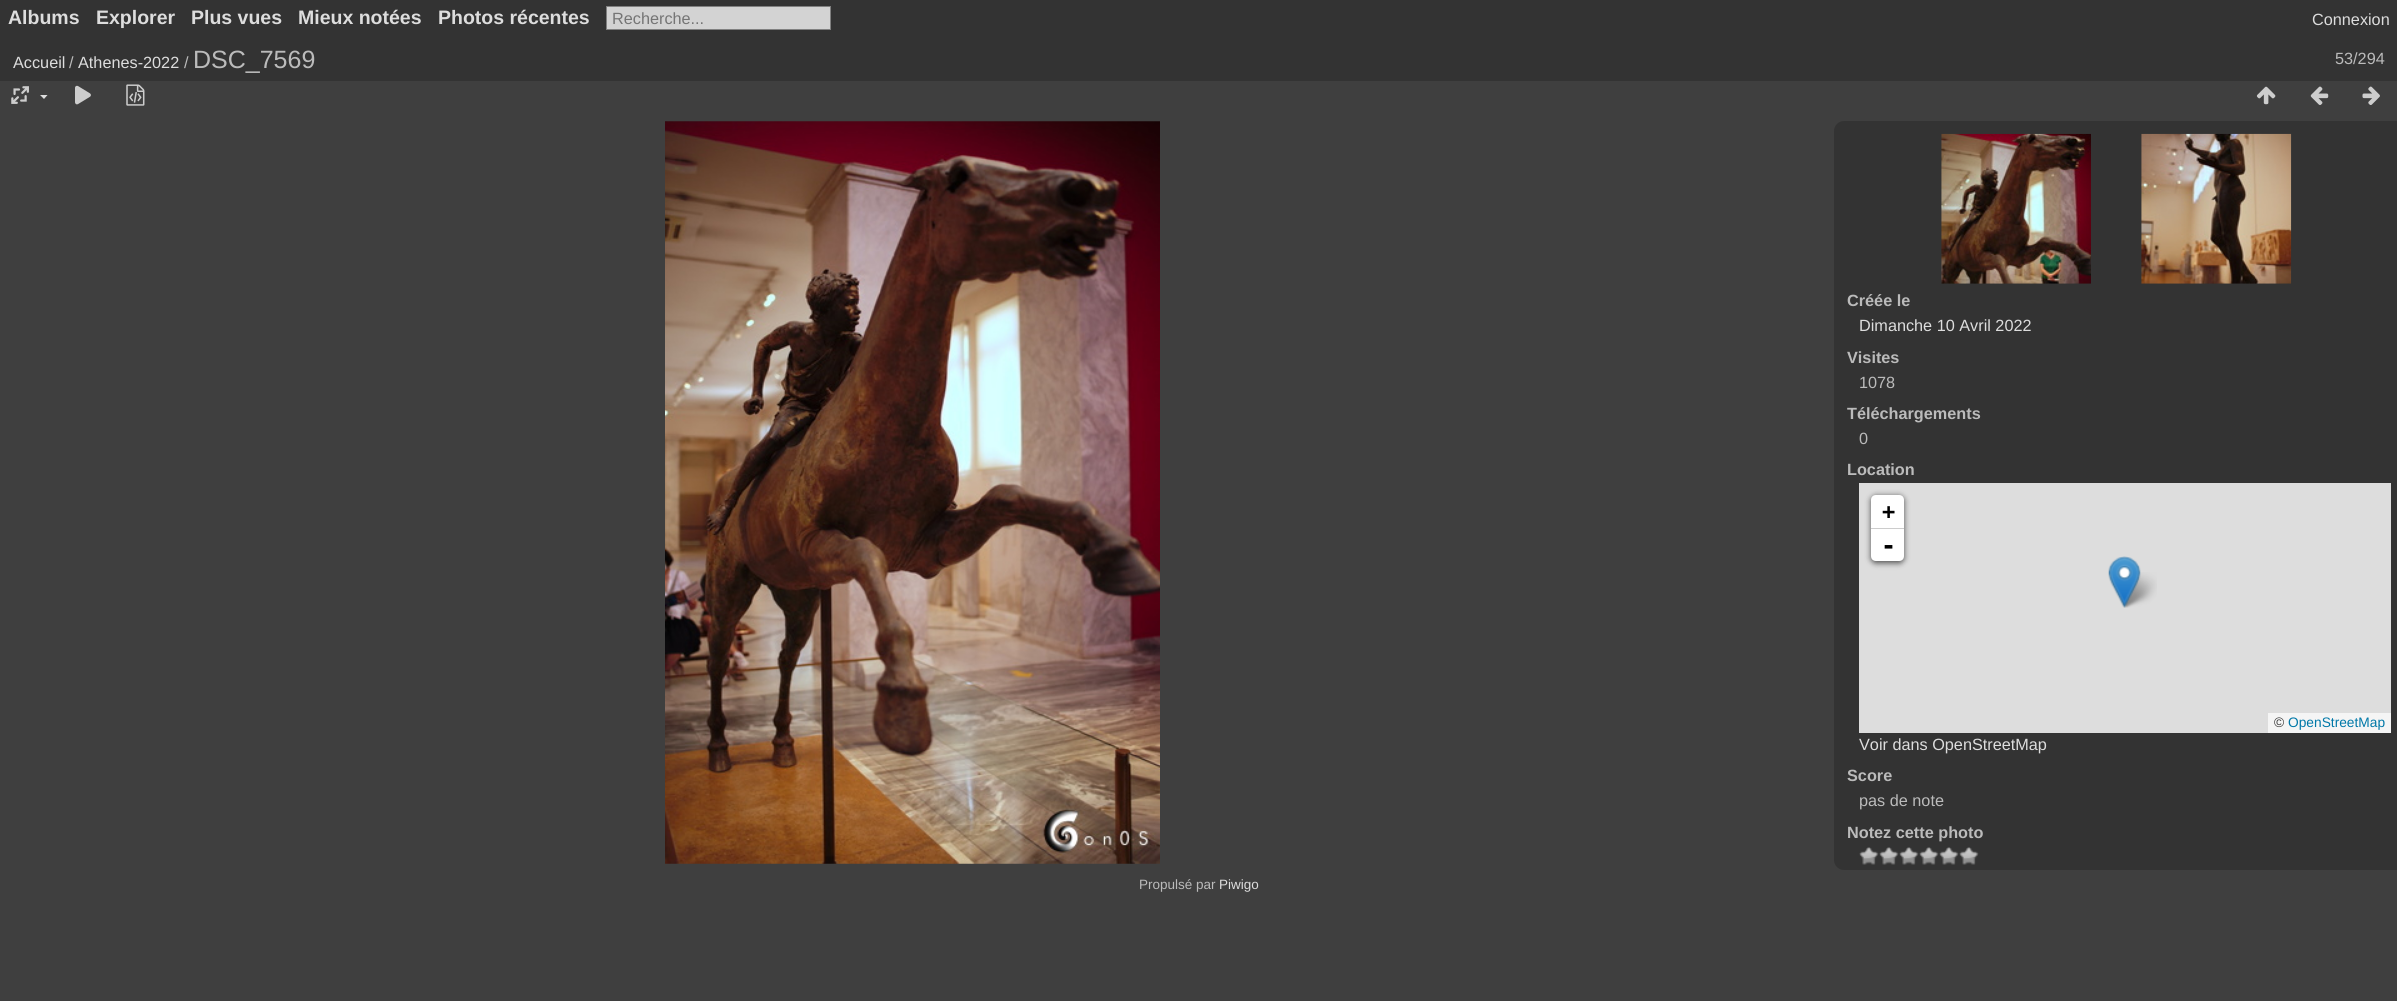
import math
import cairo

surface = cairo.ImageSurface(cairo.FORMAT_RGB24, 2397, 1001)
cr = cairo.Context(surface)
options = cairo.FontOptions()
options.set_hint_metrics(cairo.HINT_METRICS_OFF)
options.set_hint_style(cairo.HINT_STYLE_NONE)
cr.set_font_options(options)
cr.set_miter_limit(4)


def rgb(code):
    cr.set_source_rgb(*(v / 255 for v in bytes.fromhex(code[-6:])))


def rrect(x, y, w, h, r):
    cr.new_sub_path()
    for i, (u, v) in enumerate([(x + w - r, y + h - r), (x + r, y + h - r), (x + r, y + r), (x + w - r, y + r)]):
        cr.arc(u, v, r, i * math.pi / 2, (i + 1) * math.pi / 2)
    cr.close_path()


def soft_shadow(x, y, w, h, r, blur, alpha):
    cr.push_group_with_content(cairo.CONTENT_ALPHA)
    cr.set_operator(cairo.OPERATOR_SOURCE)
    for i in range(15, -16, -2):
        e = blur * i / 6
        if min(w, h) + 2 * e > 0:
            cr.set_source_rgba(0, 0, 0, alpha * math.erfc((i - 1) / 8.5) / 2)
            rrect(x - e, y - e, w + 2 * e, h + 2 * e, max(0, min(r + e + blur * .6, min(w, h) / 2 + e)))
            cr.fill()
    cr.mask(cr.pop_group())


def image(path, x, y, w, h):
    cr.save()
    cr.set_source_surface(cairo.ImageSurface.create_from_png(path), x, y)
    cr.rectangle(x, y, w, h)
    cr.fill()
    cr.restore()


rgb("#3f3f3f")
cr.paint()
rgb("#333333")
cr.rectangle(0, 0, 2397, 81)
cr.fill()
rgb("#d3d3d3")
cr.rectangle(606.5, 6.5, 224, 23)
cr.fill_preserve()
rgb("#808080")
cr.set_line_width(1)
cr.stroke()
image("img/1.png", 11, 86, 18, 18)
rgb("#dddddd")
cr.new_path()
cr.move_to(40, 95)
cr.line_to(47.5, 95)
cr.line_to(44, 99)
cr.close_path()
cr.fill()
image("img/2.png", 75, 85, 16, 20)
image("img/3.png", 126, 84, 19, 22)
image("img/4.png", 2256, 86, 20, 19)
image("img/5.png", 2310, 86, 19, 19)
image("img/6.png", 2362, 86, 18, 19)
image("img/7.png", 665, 121, 495, 743)
rgb("#333333")
cr.new_path()
cr.move_to(1844, 121)
cr.line_to(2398, 121)
cr.line_to(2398, 870)
cr.line_to(1844, 870)
cr.curve_to(1838.5, 870, 1834, 865.5, 1834, 860)
cr.line_to(1834, 131)
cr.curve_to(1834, 125.5, 1838.5, 121, 1844, 121)
cr.close_path()
cr.fill()
image("img/8.png", 1941, 133, 150, 151)
image("img/9.png", 2141, 133, 151, 151)
rgb("#dddddd")
cr.rectangle(1859, 483, 532, 250)
cr.fill()
rgb("#000000")
soft_shadow(1871, 496, 33, 67, 5, 3, 0.65)
rgb("#ffffff")
cr.new_path()
cr.move_to(1876, 495)
cr.line_to(1899, 495)
cr.curve_to(1902, 495, 1904, 497, 1904, 500)
cr.line_to(1904, 529)
cr.line_to(1871, 529)
cr.line_to(1871, 500)
cr.curve_to(1871, 497, 1873, 495, 1876, 495)
cr.close_path()
cr.fill()
rgb("#cccccc")
cr.rectangle(1871, 528, 33, 1)
cr.fill()
rgb("#ffffff")
cr.new_path()
cr.move_to(1871, 529)
cr.line_to(1904, 529)
cr.line_to(1904, 556)
cr.curve_to(1904, 559, 1902, 561, 1899, 561)
cr.line_to(1876, 561)
cr.curve_to(1873, 561, 1871, 559, 1871, 556)
cr.close_path()
cr.fill()
rgb("#f5f5f5")
cr.rectangle(2268, 713, 123, 20)
cr.fill()
image("img/11.png", 2120, 572, 37, 36)
image("img/10.png", 2108, 556, 33, 52)
image("img/12.png", 1859, 847, 20, 18)
image("img/12.png", 1879, 847, 20, 18)
image("img/12.png", 1899, 847, 20, 18)
image("img/12.png", 1919, 847, 20, 18)
image("img/13.png", 1939, 847, 20, 18)
image("img/13.png", 1959, 847, 20, 18)
cr.select_font_face("Liberation Sans", cairo.FONT_SLANT_NORMAL, cairo.FONT_WEIGHT_BOLD)
cr.set_font_size(19.5)
rgb("#dddddd")
for x, y, s in [
    (8, 24, "Albums"),
    (96, 24, "Explorer"),
    (191, 24, "Plus vues"),
    (298, 24, "Mieux notées"),
    (438, 24, "Photos récentes"),
]:
    cr.move_to(x, y)
    cr.show_text(s)
cr.select_font_face("Liberation Sans")
cr.set_font_size(16.25)
rgb("#757575")
cr.move_to(612, 24)
cr.show_text("Recherche...")
rgb("#dddddd")
cr.move_to(2312, 25)
cr.show_text("Connexion")
cr.move_to(13, 68)
cr.show_text("Accueil")
rgb("#bbbbbb")
cr.move_to(69, 68)
cr.show_text("/")
rgb("#dddddd")
cr.move_to(78, 68)
cr.show_text("Athenes-2022")
rgb("#bbbbbb")
cr.move_to(184, 68)
cr.show_text("/")
cr.set_font_size(25)
cr.move_to(193, 68)
cr.show_text("DSC_7569")
cr.set_font_size(16.25)
cr.move_to(2335, 64)
cr.show_text("53/294")
cr.select_font_face("Liberation Sans", cairo.FONT_SLANT_NORMAL, cairo.FONT_WEIGHT_BOLD)
cr.move_to(1847, 306)
cr.show_text("Créée le")
cr.select_font_face("Liberation Sans")
rgb("#dddddd")
cr.move_to(1859, 331)
cr.show_text("Dimanche 10 Avril 2022")
cr.select_font_face("Liberation Sans", cairo.FONT_SLANT_NORMAL, cairo.FONT_WEIGHT_BOLD)
rgb("#bbbbbb")
cr.move_to(1847, 363)
cr.show_text("Visites")
cr.select_font_face("Liberation Sans")
cr.move_to(1859, 388)
cr.show_text("1078")
cr.select_font_face("Liberation Sans", cairo.FONT_SLANT_NORMAL, cairo.FONT_WEIGHT_BOLD)
cr.move_to(1847, 419)
cr.show_text("Téléchargements")
cr.select_font_face("Liberation Sans")
cr.move_to(1859, 444)
cr.show_text("0")
cr.select_font_face("Liberation Sans", cairo.FONT_SLANT_NORMAL, cairo.FONT_WEIGHT_BOLD)
cr.move_to(1847, 475)
cr.show_text("Location")
cr.select_font_face("DejaVu Sans Mono", cairo.FONT_SLANT_NORMAL, cairo.FONT_WEIGHT_BOLD)
cr.set_font_size(22)
rgb("#000000")
cr.move_to(1882, 519)
cr.show_text("+")
cr.set_font_size(25)
cr.move_to(1881, 554)
cr.show_text("-")
cr.select_font_face("Liberation Sans")
cr.set_font_size(13.75)
rgb("#333333")
cr.move_to(2274, 727)
cr.show_text("©")
rgb("#0078a8")
cr.move_to(2288, 727)
cr.show_text("OpenStreetMap")
cr.set_font_size(16.25)
rgb("#dddddd")
cr.move_to(1859, 750)
cr.show_text("Voir dans OpenStreetMap")
cr.select_font_face("Liberation Sans", cairo.FONT_SLANT_NORMAL, cairo.FONT_WEIGHT_BOLD)
rgb("#bbbbbb")
cr.move_to(1847, 781)
cr.show_text("Score")
cr.select_font_face("Liberation Sans")
cr.move_to(1859, 806)
cr.show_text("pas de note")
cr.select_font_face("Liberation Sans", cairo.FONT_SLANT_NORMAL, cairo.FONT_WEIGHT_BOLD)
cr.move_to(1847, 838)
cr.show_text("Notez cette photo")
cr.select_font_face("Liberation Sans")
cr.set_font_size(13.5)
cr.move_to(1139, 889)
cr.show_text("Propulsé par")
rgb("#dddddd")
cr.move_to(1219, 889)
cr.show_text("Piwigo")
surface.write_to_png("page.png")
